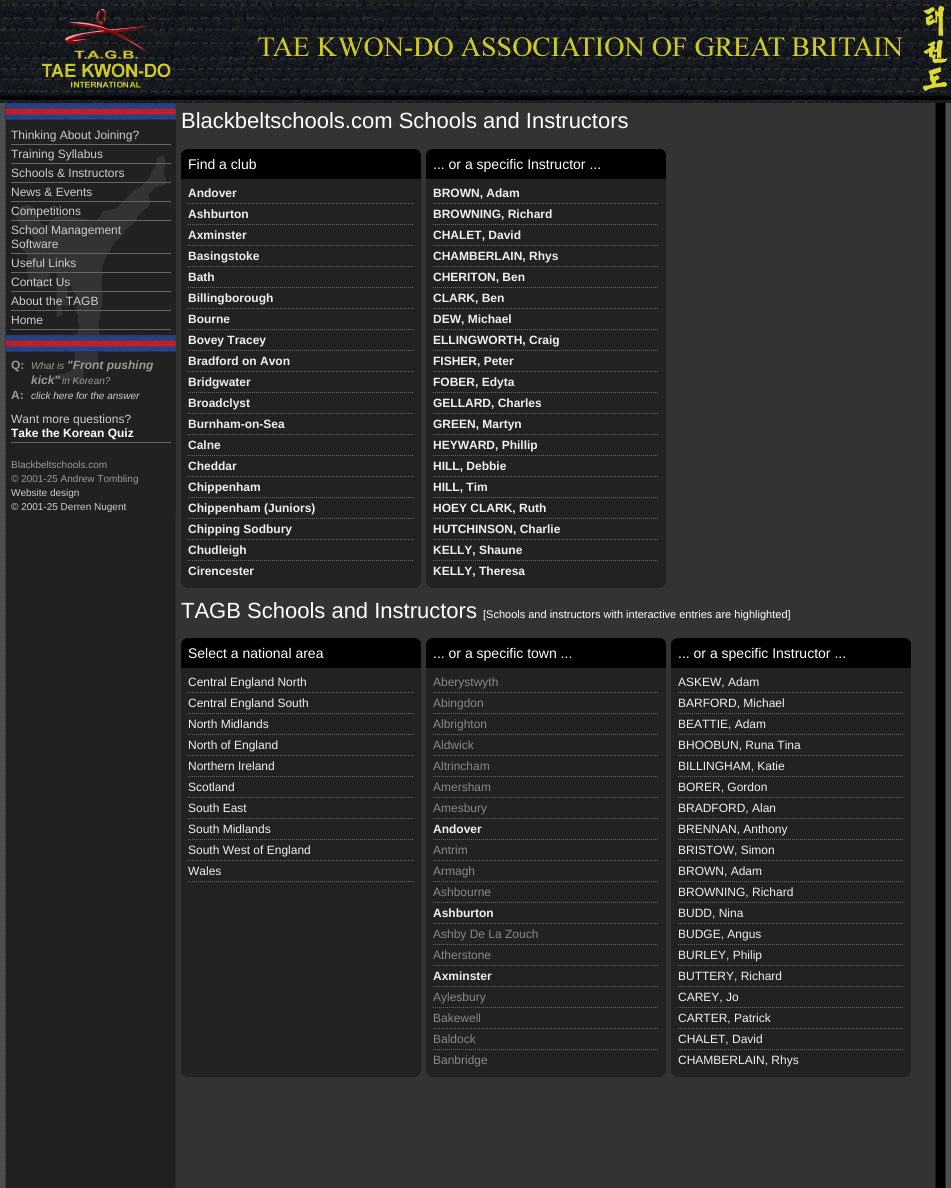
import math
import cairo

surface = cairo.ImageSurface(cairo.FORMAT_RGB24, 951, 1188)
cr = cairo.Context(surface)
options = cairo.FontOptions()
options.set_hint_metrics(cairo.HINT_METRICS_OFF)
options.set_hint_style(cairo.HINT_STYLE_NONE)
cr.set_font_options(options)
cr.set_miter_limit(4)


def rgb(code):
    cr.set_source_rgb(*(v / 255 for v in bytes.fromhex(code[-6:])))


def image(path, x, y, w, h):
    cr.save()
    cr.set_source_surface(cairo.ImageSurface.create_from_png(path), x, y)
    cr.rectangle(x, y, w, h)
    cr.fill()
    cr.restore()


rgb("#ffffff")
cr.paint()
image("img/1.png", 0, 103, 951, 1085)
image("img/2.png", 0, 99, 951, 4)
image("img/3.png", 0, 0, 951, 99)
image("img/4.png", 16, 120, 160, 393)
image("img/5.png", 6, 103, 170, 17)
for x, y, w, h, color in [
    (11, 144, 160, 1, "#666666"),
    (11, 163, 160, 1, "#666666"),
    (11, 182, 160, 1, "#666666"),
    (11, 201, 160, 1, "#666666"),
    (11, 220, 160, 1, "#666666"),
    (11, 253, 160, 1, "#666666"),
    (11, 272, 160, 1, "#666666"),
    (11, 291, 160, 1, "#666666"),
    (11, 310, 160, 1, "#666666"),
    (11, 329, 160, 1, "#666666"),
]:
    rgb(color)
    cr.rectangle(x, y, w, h)
    cr.fill()
image("img/5.png", 6, 335, 170, 17)
cr.rectangle(11, 442, 160, 1)
cr.fill()
rgb("#000000")
cr.rectangle(181, 149, 240, 30)
cr.fill()
image("img/6.png", 181, 149, 6, 5)
image("img/7.png", 416, 149, 5, 5)
rgb("#222222")
cr.rectangle(181, 179, 240, 409)
cr.fill()
image("img/8.png", 181, 583, 5, 5)
image("img/9.png", 416, 583, 5, 5)
cr.new_path()
cr.move_to(188, 203.5)
cr.line_to(414, 203.5)
rgb("#666666")
cr.set_line_width(1)
cr.set_dash([1, 1])
cr.stroke()
cr.new_path()
cr.move_to(188, 224.5)
cr.line_to(414, 224.5)
cr.stroke()
cr.new_path()
cr.move_to(188, 245.5)
cr.line_to(414, 245.5)
cr.stroke()
cr.new_path()
cr.move_to(188, 266.5)
cr.line_to(414, 266.5)
cr.stroke()
cr.new_path()
cr.move_to(188, 287.5)
cr.line_to(414, 287.5)
cr.stroke()
cr.new_path()
cr.move_to(188, 308.5)
cr.line_to(414, 308.5)
cr.stroke()
cr.new_path()
cr.move_to(188, 329.5)
cr.line_to(414, 329.5)
cr.stroke()
cr.new_path()
cr.move_to(188, 350.5)
cr.line_to(414, 350.5)
cr.stroke()
cr.new_path()
cr.move_to(188, 371.5)
cr.line_to(414, 371.5)
cr.stroke()
cr.new_path()
cr.move_to(188, 392.5)
cr.line_to(414, 392.5)
cr.stroke()
cr.new_path()
cr.move_to(188, 413.5)
cr.line_to(414, 413.5)
cr.stroke()
cr.new_path()
cr.move_to(188, 434.5)
cr.line_to(414, 434.5)
cr.stroke()
cr.new_path()
cr.move_to(188, 455.5)
cr.line_to(414, 455.5)
cr.stroke()
cr.new_path()
cr.move_to(188, 476.5)
cr.line_to(414, 476.5)
cr.stroke()
cr.new_path()
cr.move_to(188, 497.5)
cr.line_to(414, 497.5)
cr.stroke()
cr.new_path()
cr.move_to(188, 518.5)
cr.line_to(414, 518.5)
cr.stroke()
cr.new_path()
cr.move_to(188, 539.5)
cr.line_to(414, 539.5)
cr.stroke()
cr.new_path()
cr.move_to(188, 560.5)
cr.line_to(414, 560.5)
cr.stroke()
rgb("#000000")
cr.rectangle(426, 149, 240, 30)
cr.fill()
image("img/6.png", 426, 149, 6, 5)
image("img/7.png", 661, 149, 5, 5)
rgb("#222222")
cr.rectangle(426, 179, 240, 409)
cr.fill()
image("img/8.png", 426, 583, 5, 5)
image("img/9.png", 661, 583, 5, 5)
cr.new_path()
cr.move_to(433, 203.5)
cr.line_to(659, 203.5)
rgb("#666666")
cr.stroke()
cr.new_path()
cr.move_to(433, 224.5)
cr.line_to(659, 224.5)
cr.stroke()
cr.new_path()
cr.move_to(433, 245.5)
cr.line_to(659, 245.5)
cr.stroke()
cr.new_path()
cr.move_to(433, 266.5)
cr.line_to(659, 266.5)
cr.stroke()
cr.new_path()
cr.move_to(433, 287.5)
cr.line_to(659, 287.5)
cr.stroke()
cr.new_path()
cr.move_to(433, 308.5)
cr.line_to(659, 308.5)
cr.stroke()
cr.new_path()
cr.move_to(433, 329.5)
cr.line_to(659, 329.5)
cr.stroke()
cr.new_path()
cr.move_to(433, 350.5)
cr.line_to(659, 350.5)
cr.stroke()
cr.new_path()
cr.move_to(433, 371.5)
cr.line_to(659, 371.5)
cr.stroke()
cr.new_path()
cr.move_to(433, 392.5)
cr.line_to(659, 392.5)
cr.stroke()
cr.new_path()
cr.move_to(433, 413.5)
cr.line_to(659, 413.5)
cr.stroke()
cr.new_path()
cr.move_to(433, 434.5)
cr.line_to(659, 434.5)
cr.stroke()
cr.new_path()
cr.move_to(433, 455.5)
cr.line_to(659, 455.5)
cr.stroke()
cr.new_path()
cr.move_to(433, 476.5)
cr.line_to(659, 476.5)
cr.stroke()
cr.new_path()
cr.move_to(433, 497.5)
cr.line_to(659, 497.5)
cr.stroke()
cr.new_path()
cr.move_to(433, 518.5)
cr.line_to(659, 518.5)
cr.stroke()
cr.new_path()
cr.move_to(433, 539.5)
cr.line_to(659, 539.5)
cr.stroke()
cr.new_path()
cr.move_to(433, 560.5)
cr.line_to(659, 560.5)
cr.stroke()
rgb("#000000")
cr.rectangle(181, 638, 240, 30)
cr.fill()
image("img/6.png", 181, 638, 6, 5)
image("img/7.png", 416, 638, 5, 5)
rgb("#222222")
cr.rectangle(181, 668, 240, 409)
cr.fill()
image("img/8.png", 181, 1072, 5, 5)
image("img/9.png", 416, 1072, 5, 5)
cr.new_path()
cr.move_to(188, 692.5)
cr.line_to(414, 692.5)
rgb("#666666")
cr.stroke()
cr.new_path()
cr.move_to(188, 713.5)
cr.line_to(414, 713.5)
cr.stroke()
cr.new_path()
cr.move_to(188, 734.5)
cr.line_to(414, 734.5)
cr.stroke()
cr.new_path()
cr.move_to(188, 755.5)
cr.line_to(414, 755.5)
cr.stroke()
cr.new_path()
cr.move_to(188, 776.5)
cr.line_to(414, 776.5)
cr.stroke()
cr.new_path()
cr.move_to(188, 797.5)
cr.line_to(414, 797.5)
cr.stroke()
cr.new_path()
cr.move_to(188, 818.5)
cr.line_to(414, 818.5)
cr.stroke()
cr.new_path()
cr.move_to(188, 839.5)
cr.line_to(414, 839.5)
cr.stroke()
cr.new_path()
cr.move_to(188, 860.5)
cr.line_to(414, 860.5)
cr.stroke()
cr.new_path()
cr.move_to(188, 881.5)
cr.line_to(414, 881.5)
cr.stroke()
rgb("#000000")
cr.rectangle(426, 638, 240, 30)
cr.fill()
image("img/6.png", 426, 638, 6, 5)
image("img/7.png", 661, 638, 5, 5)
rgb("#222222")
cr.rectangle(426, 668, 240, 409)
cr.fill()
image("img/8.png", 426, 1072, 5, 5)
image("img/9.png", 661, 1072, 5, 5)
cr.new_path()
cr.move_to(433, 692.5)
cr.line_to(659, 692.5)
rgb("#666666")
cr.stroke()
cr.new_path()
cr.move_to(433, 713.5)
cr.line_to(659, 713.5)
cr.stroke()
cr.new_path()
cr.move_to(433, 734.5)
cr.line_to(659, 734.5)
cr.stroke()
cr.new_path()
cr.move_to(433, 755.5)
cr.line_to(659, 755.5)
cr.stroke()
cr.new_path()
cr.move_to(433, 776.5)
cr.line_to(659, 776.5)
cr.stroke()
cr.new_path()
cr.move_to(433, 797.5)
cr.line_to(659, 797.5)
cr.stroke()
cr.new_path()
cr.move_to(433, 818.5)
cr.line_to(659, 818.5)
cr.stroke()
cr.new_path()
cr.move_to(433, 839.5)
cr.line_to(659, 839.5)
cr.stroke()
cr.new_path()
cr.move_to(433, 860.5)
cr.line_to(659, 860.5)
cr.stroke()
cr.new_path()
cr.move_to(433, 881.5)
cr.line_to(659, 881.5)
cr.stroke()
cr.new_path()
cr.move_to(433, 902.5)
cr.line_to(659, 902.5)
cr.stroke()
cr.new_path()
cr.move_to(433, 923.5)
cr.line_to(659, 923.5)
cr.stroke()
cr.new_path()
cr.move_to(433, 944.5)
cr.line_to(659, 944.5)
cr.stroke()
cr.new_path()
cr.move_to(433, 965.5)
cr.line_to(659, 965.5)
cr.stroke()
cr.new_path()
cr.move_to(433, 986.5)
cr.line_to(659, 986.5)
cr.stroke()
cr.new_path()
cr.move_to(433, 1007.5)
cr.line_to(659, 1007.5)
cr.stroke()
cr.new_path()
cr.move_to(433, 1028.5)
cr.line_to(659, 1028.5)
cr.stroke()
cr.new_path()
cr.move_to(433, 1049.5)
cr.line_to(659, 1049.5)
cr.stroke()
rgb("#000000")
cr.rectangle(671, 638, 240, 30)
cr.fill()
image("img/6.png", 671, 638, 6, 5)
image("img/7.png", 906, 638, 5, 5)
rgb("#222222")
cr.rectangle(671, 668, 240, 409)
cr.fill()
image("img/8.png", 671, 1072, 5, 5)
image("img/9.png", 906, 1072, 5, 5)
cr.new_path()
cr.move_to(678, 692.5)
cr.line_to(904, 692.5)
rgb("#666666")
cr.stroke()
cr.new_path()
cr.move_to(678, 713.5)
cr.line_to(904, 713.5)
cr.stroke()
cr.new_path()
cr.move_to(678, 734.5)
cr.line_to(904, 734.5)
cr.stroke()
cr.new_path()
cr.move_to(678, 755.5)
cr.line_to(904, 755.5)
cr.stroke()
cr.new_path()
cr.move_to(678, 776.5)
cr.line_to(904, 776.5)
cr.stroke()
cr.new_path()
cr.move_to(678, 797.5)
cr.line_to(904, 797.5)
cr.stroke()
cr.new_path()
cr.move_to(678, 818.5)
cr.line_to(904, 818.5)
cr.stroke()
cr.new_path()
cr.move_to(678, 839.5)
cr.line_to(904, 839.5)
cr.stroke()
cr.new_path()
cr.move_to(678, 860.5)
cr.line_to(904, 860.5)
cr.stroke()
cr.new_path()
cr.move_to(678, 881.5)
cr.line_to(904, 881.5)
cr.stroke()
cr.new_path()
cr.move_to(678, 902.5)
cr.line_to(904, 902.5)
cr.stroke()
cr.new_path()
cr.move_to(678, 923.5)
cr.line_to(904, 923.5)
cr.stroke()
cr.new_path()
cr.move_to(678, 944.5)
cr.line_to(904, 944.5)
cr.stroke()
cr.new_path()
cr.move_to(678, 965.5)
cr.line_to(904, 965.5)
cr.stroke()
cr.new_path()
cr.move_to(678, 986.5)
cr.line_to(904, 986.5)
cr.stroke()
cr.new_path()
cr.move_to(678, 1007.5)
cr.line_to(904, 1007.5)
cr.stroke()
cr.new_path()
cr.move_to(678, 1028.5)
cr.line_to(904, 1028.5)
cr.stroke()
cr.new_path()
cr.move_to(678, 1049.5)
cr.line_to(904, 1049.5)
cr.stroke()
cr.select_font_face("Liberation Sans")
cr.set_font_size(12)
rgb("#cccccc")
for x, y, s in [
    (11, 139, "Thinking About Joining?"),
    (11, 158, "Training Syllabus"),
    (11, 177, "Schools & Instructors"),
    (11, 196, "News & Events"),
    (11, 215, "Competitions"),
    (11, 234, "School Management"),
    (11, 248, "Software"),
    (11, 267, "Useful Links"),
    (11, 286, "Contact Us"),
    (11, 305, "About the TAGB"),
    (11, 324, "Home"),
]:
    cr.move_to(x, y)
    cr.show_text(s)
cr.select_font_face("Liberation Sans", cairo.FONT_SLANT_NORMAL, cairo.FONT_WEIGHT_BOLD)
rgb("#999999")
cr.move_to(11, 369)
cr.show_text("Q:")
cr.select_font_face("Liberation Sans", cairo.FONT_SLANT_ITALIC)
cr.set_font_size(10)
cr.move_to(31, 369)
cr.show_text("What is")
cr.select_font_face("Liberation Sans", cairo.FONT_SLANT_ITALIC, cairo.FONT_WEIGHT_BOLD)
cr.set_font_size(12)
cr.move_to(67, 369)
cr.show_text("\"Front pushing")
cr.move_to(31, 384)
cr.show_text("kick\"")
cr.select_font_face("Liberation Sans", cairo.FONT_SLANT_ITALIC)
cr.set_font_size(10)
cr.move_to(62, 384)
cr.show_text("in Korean?")
cr.select_font_face("Liberation Sans", cairo.FONT_SLANT_NORMAL, cairo.FONT_WEIGHT_BOLD)
cr.set_font_size(12)
cr.move_to(11, 399)
cr.show_text("A:")
cr.select_font_face("Liberation Sans", cairo.FONT_SLANT_ITALIC)
cr.set_font_size(10)
rgb("#cccccc")
cr.move_to(31, 399)
cr.show_text("click here for the answer")
cr.select_font_face("Liberation Sans")
cr.set_font_size(12)
cr.move_to(11, 423)
cr.show_text("Want more questions?")
cr.select_font_face("Liberation Sans", cairo.FONT_SLANT_NORMAL, cairo.FONT_WEIGHT_BOLD)
rgb("#ffffff")
cr.move_to(11, 437)
cr.show_text("Take the Korean Quiz")
cr.select_font_face("Liberation Sans")
cr.set_font_size(10)
rgb("#999999")
cr.move_to(11, 468)
cr.show_text("Blackbeltschools.com")
cr.move_to(11, 482)
cr.show_text("© 2001-25 Andrew Tombling")
rgb("#cccccc")
cr.move_to(11, 496)
cr.show_text("Website design")
cr.move_to(11, 510)
cr.show_text("© 2001-25 Derren Nugent")
cr.set_font_size(22)
rgb("#ffffff")
cr.move_to(181, 128)
cr.show_text("Blackbeltschools.com Schools and Instructors")
cr.set_font_size(14)
cr.move_to(188, 169)
cr.show_text("Find a club")
cr.select_font_face("Liberation Sans", cairo.FONT_SLANT_NORMAL, cairo.FONT_WEIGHT_BOLD)
cr.set_font_size(12)
rgb("#f2eef0")
for x, y, s in [
    (188, 197, "Andover"),
    (188, 218, "Ashburton"),
    (188, 239, "Axminster"),
    (188, 260, "Basingstoke"),
    (188, 281, "Bath"),
    (188, 302, "Billingborough"),
    (188, 323, "Bourne"),
    (188, 344, "Bovey Tracey"),
    (188, 365, "Bradford on Avon"),
    (188, 386, "Bridgwater"),
    (188, 407, "Broadclyst"),
    (188, 428, "Burnham-on-Sea"),
    (188, 449, "Calne"),
    (188, 470, "Cheddar"),
    (188, 491, "Chippenham"),
    (188, 512, "Chippenham (Juniors)"),
    (188, 533, "Chipping Sodbury"),
    (188, 554, "Chudleigh"),
    (188, 575, "Cirencester"),
]:
    cr.move_to(x, y)
    cr.show_text(s)
cr.select_font_face("Liberation Sans")
cr.set_font_size(14)
rgb("#ffffff")
cr.move_to(433, 169)
cr.show_text("... or a specific Instructor ...")
cr.select_font_face("Liberation Sans", cairo.FONT_SLANT_NORMAL, cairo.FONT_WEIGHT_BOLD)
cr.set_font_size(12)
rgb("#f2eef0")
for x, y, s in [
    (433, 197, "BROWN, Adam"),
    (433, 218, "BROWNING, Richard"),
    (433, 239, "CHALET, David"),
    (433, 260, "CHAMBERLAIN, Rhys"),
    (433, 281, "CHERITON, Ben"),
    (433, 302, "CLARK, Ben"),
    (433, 323, "DEW, Michael"),
    (433, 344, "ELLINGWORTH, Craig"),
    (433, 365, "FISHER, Peter"),
    (433, 386, "FOBER, Edyta"),
    (433, 407, "GELLARD, Charles"),
    (433, 428, "GREEN, Martyn"),
    (433, 449, "HEYWARD, Phillip"),
    (433, 470, "HILL, Debbie"),
    (433, 491, "HILL, Tim"),
    (433, 512, "HOEY CLARK, Ruth"),
    (433, 533, "HUTCHINSON, Charlie"),
    (433, 554, "KELLY, Shaune"),
    (433, 575, "KELLY, Theresa"),
]:
    cr.move_to(x, y)
    cr.show_text(s)
cr.select_font_face("Liberation Sans")
cr.set_font_size(22)
rgb("#ffffff")
cr.move_to(181, 618)
cr.show_text("TAGB Schools and Instructors")
cr.set_font_size(11)
cr.move_to(483, 618)
cr.show_text("[Schools and instructors with interactive entries are highlighted]")
cr.set_font_size(14)
cr.move_to(188, 658)
cr.show_text("Select a national area")
cr.set_font_size(12)
rgb("#f2eef0")
for x, y, s in [
    (188, 686, "Central England North"),
    (188, 707, "Central England South"),
    (188, 728, "North Midlands"),
    (188, 749, "North of England"),
    (188, 770, "Northern Ireland"),
    (188, 791, "Scotland"),
    (188, 812, "South East"),
    (188, 833, "South Midlands"),
    (188, 854, "South West of England"),
    (188, 875, "Wales"),
]:
    cr.move_to(x, y)
    cr.show_text(s)
cr.set_font_size(14)
rgb("#ffffff")
cr.move_to(433, 658)
cr.show_text("... or a specific town ...")
cr.set_font_size(12)
rgb("#888888")
for x, y, s in [
    (433, 686, "Aberystwyth"),
    (433, 707, "Abingdon"),
    (433, 728, "Albrighton"),
    (433, 749, "Aldwick"),
    (433, 770, "Altrincham"),
    (433, 791, "Amersham"),
    (433, 812, "Amesbury"),
]:
    cr.move_to(x, y)
    cr.show_text(s)
cr.select_font_face("Liberation Sans", cairo.FONT_SLANT_NORMAL, cairo.FONT_WEIGHT_BOLD)
rgb("#f2eef0")
cr.move_to(433, 833)
cr.show_text("Andover")
cr.select_font_face("Liberation Sans")
rgb("#888888")
for x, y, s in [
    (433, 854, "Antrim"),
    (433, 875, "Armagh"),
    (433, 896, "Ashbourne"),
]:
    cr.move_to(x, y)
    cr.show_text(s)
cr.select_font_face("Liberation Sans", cairo.FONT_SLANT_NORMAL, cairo.FONT_WEIGHT_BOLD)
rgb("#f2eef0")
cr.move_to(433, 917)
cr.show_text("Ashburton")
cr.select_font_face("Liberation Sans")
rgb("#888888")
cr.move_to(433, 938)
cr.show_text("Ashby De La Zouch")
cr.move_to(433, 959)
cr.show_text("Atherstone")
cr.select_font_face("Liberation Sans", cairo.FONT_SLANT_NORMAL, cairo.FONT_WEIGHT_BOLD)
rgb("#f2eef0")
cr.move_to(433, 980)
cr.show_text("Axminster")
cr.select_font_face("Liberation Sans")
rgb("#888888")
for x, y, s in [
    (433, 1001, "Aylesbury"),
    (433, 1022, "Bakewell"),
    (433, 1043, "Baldock"),
    (433, 1064, "Banbridge"),
]:
    cr.move_to(x, y)
    cr.show_text(s)
cr.set_font_size(14)
rgb("#ffffff")
cr.move_to(678, 658)
cr.show_text("... or a specific Instructor ...")
cr.set_font_size(12)
rgb("#f2eef0")
for x, y, s in [
    (678, 686, "ASKEW, Adam"),
    (678, 707, "BARFORD, Michael"),
    (678, 728, "BEATTIE, Adam"),
    (678, 749, "BHOOBUN, Runa Tina"),
    (678, 770, "BILLINGHAM, Katie"),
    (678, 791, "BORER, Gordon"),
    (678, 812, "BRADFORD, Alan"),
    (678, 833, "BRENNAN, Anthony"),
    (678, 854, "BRISTOW, Simon"),
    (678, 875, "BROWN, Adam"),
    (678, 896, "BROWNING, Richard"),
    (678, 917, "BUDD, Nina"),
    (678, 938, "BUDGE, Angus"),
    (678, 959, "BURLEY, Philip"),
    (678, 980, "BUTTERY, Richard"),
    (678, 1001, "CAREY, Jo"),
    (678, 1022, "CARTER, Patrick"),
    (678, 1043, "CHALET, David"),
    (678, 1064, "CHAMBERLAIN, Rhys"),
]:
    cr.move_to(x, y)
    cr.show_text(s)
surface.write_to_png("page.png")
